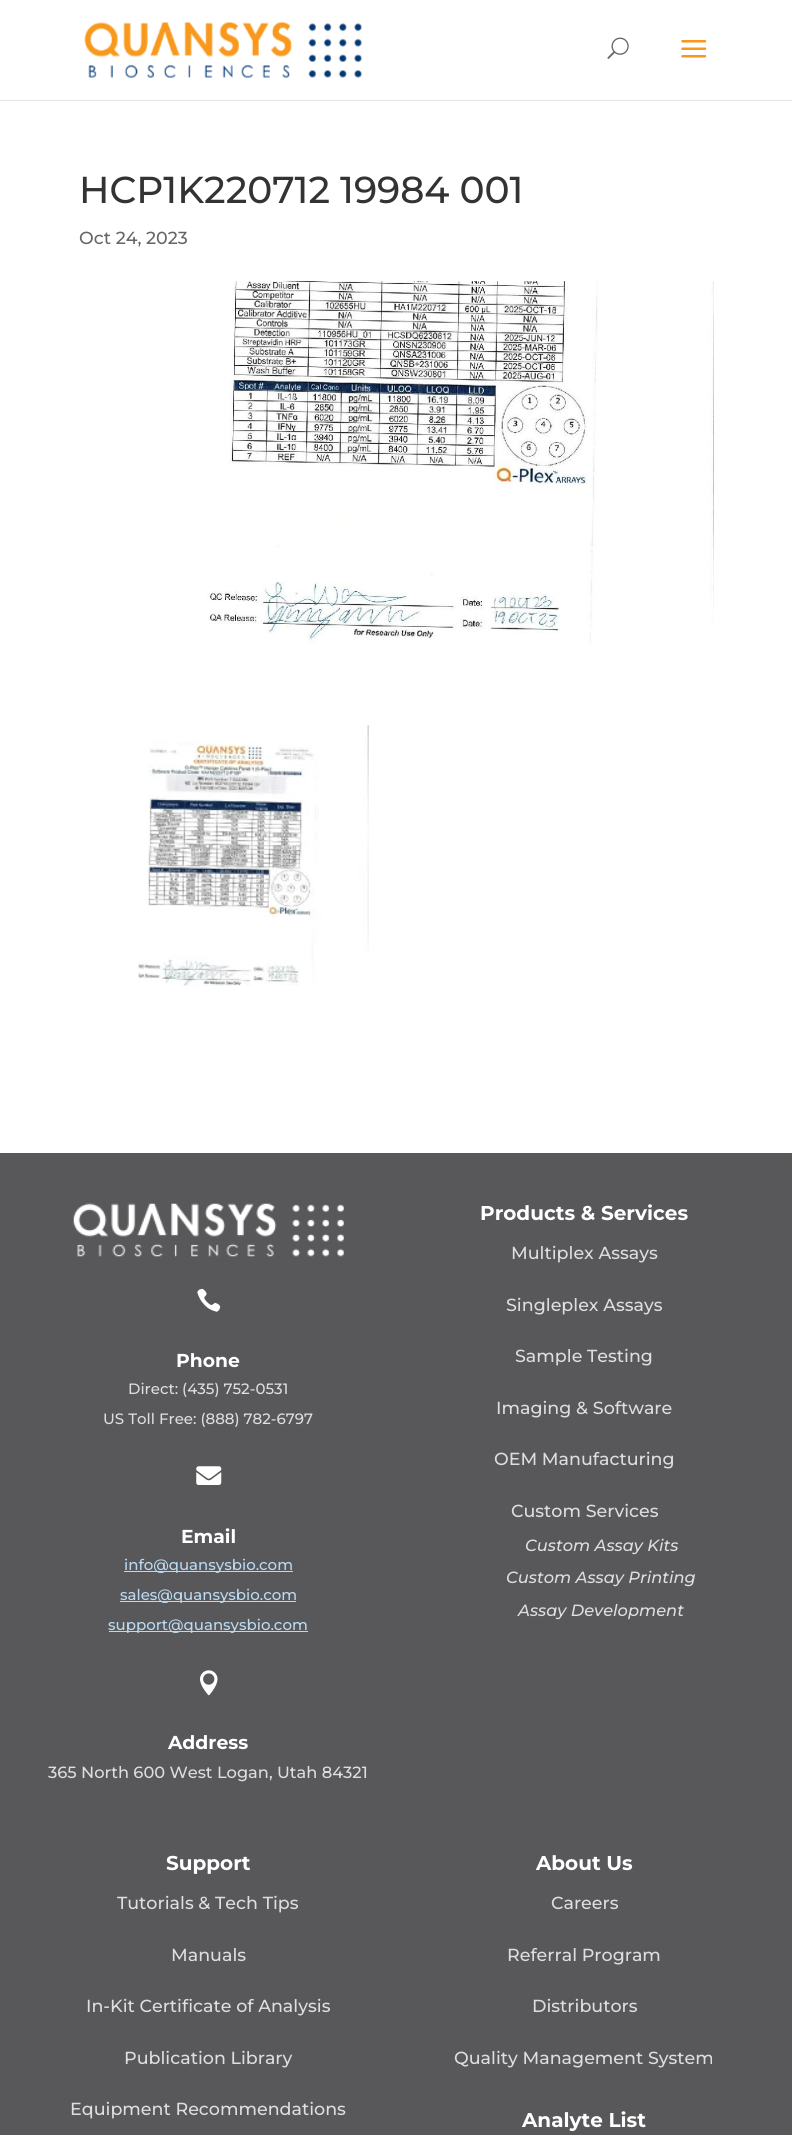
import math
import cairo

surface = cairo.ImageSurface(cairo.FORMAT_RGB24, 792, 2135)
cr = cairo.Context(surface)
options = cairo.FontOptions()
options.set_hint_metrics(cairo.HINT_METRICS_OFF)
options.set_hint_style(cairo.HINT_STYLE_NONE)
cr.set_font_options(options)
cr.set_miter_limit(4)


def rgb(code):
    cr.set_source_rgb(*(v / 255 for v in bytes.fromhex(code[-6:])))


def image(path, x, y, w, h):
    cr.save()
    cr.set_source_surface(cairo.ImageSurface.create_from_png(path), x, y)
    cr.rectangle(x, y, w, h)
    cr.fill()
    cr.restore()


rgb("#ffffff")
cr.paint()
rgb("#e6e6e6")
cr.new_path()
cr.move_to(0, 100)
cr.line_to(0, 101)
cr.line_to(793, 101)
cr.line_to(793, 1)
cr.line_to(792, 1)
cr.line_to(792, 100)
cr.close_path()
cr.fill()
image("img/1.png", 84, 22, 278, 56)
image("img/2.png", 607, 37, 22, 22)
image("img/3.png", 681, 40, 26, 18)
image("img/4.png", 206, 281, 508, 364)
image("img/5.png", 138, 725, 231, 262)
rgb("#58585a")
cr.rectangle(0, 1153, 792, 982)
cr.fill()
image("img/6.png", 73, 1203, 271, 54)
image("img/7.png", 197, 1288, 24, 24)
image("img/8.png", 196, 1466, 26, 19)
for x, y, w, h, color in [
    (124, 1571, 169, 1, "#badaf3"),
    (120, 1601, 176, 1, "#badaf3"),
    (109, 1631, 199, 1, "#badaf3"),
]:
    rgb(color)
    cr.rectangle(x, y, w, h)
    cr.fill()
image("img/9.png", 200, 1670, 18, 26)
cr.select_font_face("Montserrat Medium")
cr.set_font_size(37.5)
rgb("#333333")
cr.move_to(79, 203)
cr.show_text("HCP1K220712 19984 001")
cr.set_font_size(17.5)
rgb("#666666")
cr.move_to(79, 244)
cr.show_text("Oct 24, 2023")
cr.select_font_face("Montserrat", cairo.FONT_SLANT_NORMAL, cairo.FONT_WEIGHT_BOLD)
cr.set_font_size(18.75)
rgb("#ffffff")
cr.move_to(176, 1367)
cr.show_text("Phone")
cr.select_font_face("Montserrat Medium")
cr.set_font_size(15)
rgb("#dedede")
cr.move_to(128, 1394)
cr.show_text("Direct: (435) 752-0531")
cr.move_to(103, 1424)
cr.show_text("US Toll Free: (888) 782-6797")
cr.select_font_face("Montserrat", cairo.FONT_SLANT_NORMAL, cairo.FONT_WEIGHT_BOLD)
cr.set_font_size(18.75)
rgb("#ffffff")
cr.move_to(181, 1543)
cr.show_text("Email")
cr.select_font_face("Montserrat Medium")
cr.set_font_size(15)
rgb("#badaf3")
for x, y, s in [
    (124, 1570, "info@quansysbio.com"),
    (120, 1600, "sales@quansysbio.com"),
    (108, 1630, "support@quansysbio.com"),
]:
    cr.move_to(x, y)
    cr.show_text(s)
cr.select_font_face("Montserrat", cairo.FONT_SLANT_NORMAL, cairo.FONT_WEIGHT_BOLD)
cr.set_font_size(18.75)
rgb("#ffffff")
cr.move_to(168, 1749)
cr.show_text("Address")
cr.select_font_face("Montserrat Medium")
cr.set_font_size(16.25)
rgb("#dedede")
cr.move_to(48, 1778)
cr.show_text("365 North 600 West Logan, Utah 84321")
cr.select_font_face("Montserrat", cairo.FONT_SLANT_NORMAL, cairo.FONT_WEIGHT_BOLD)
cr.set_font_size(20)
rgb("#ffffff")
cr.move_to(480, 1220)
cr.show_text("Products & Services")
cr.select_font_face("Montserrat Medium")
cr.set_font_size(17.5)
rgb("#dedede")
for x, y, s in [
    (511, 1259, "Multiplex Assays"),
    (506, 1311, "Singleplex Assays"),
    (515, 1362, "Sample Testing"),
    (496, 1414, "Imaging & Software"),
    (494, 1465, "OEM Manufacturing"),
    (511, 1517, "Custom Services"),
]:
    cr.move_to(x, y)
    cr.show_text(s)
cr.select_font_face("Montserrat Medium", cairo.FONT_SLANT_ITALIC)
cr.set_font_size(16.25)
for x, y, s in [
    (525, 1551, "Custom Assay Kits"),
    (506, 1583, "Custom Assay Printing"),
    (518, 1616, "Assay Development"),
]:
    cr.move_to(x, y)
    cr.show_text(s)
cr.select_font_face("Montserrat", cairo.FONT_SLANT_NORMAL, cairo.FONT_WEIGHT_BOLD)
cr.set_font_size(20)
rgb("#ffffff")
cr.move_to(166, 1870)
cr.show_text("Support")
cr.select_font_face("Montserrat Medium")
cr.set_font_size(17.5)
rgb("#dedede")
for x, y, s in [
    (117, 1909, "Tutorials & Tech Tips"),
    (171, 1961, "Manuals"),
    (86, 2012, "In-Kit Certificate of Analysis"),
    (124, 2064, "Publication Library"),
    (70, 2115, "Equipment Recommendations"),
]:
    cr.move_to(x, y)
    cr.show_text(s)
cr.select_font_face("Montserrat", cairo.FONT_SLANT_NORMAL, cairo.FONT_WEIGHT_BOLD)
cr.set_font_size(20)
rgb("#ffffff")
cr.move_to(536, 1870)
cr.show_text("About Us")
cr.select_font_face("Montserrat Medium")
cr.set_font_size(17.5)
rgb("#dedede")
for x, y, s in [
    (551, 1909, "Careers"),
    (507, 1961, "Referral Program"),
    (532, 2012, "Distributors"),
    (454, 2064, "Quality Management System"),
]:
    cr.move_to(x, y)
    cr.show_text(s)
cr.select_font_face("Montserrat", cairo.FONT_SLANT_NORMAL, cairo.FONT_WEIGHT_BOLD)
cr.set_font_size(20)
rgb("#ffffff")
cr.move_to(522, 2127)
cr.show_text("Analyte List")
surface.write_to_png("page.png")
